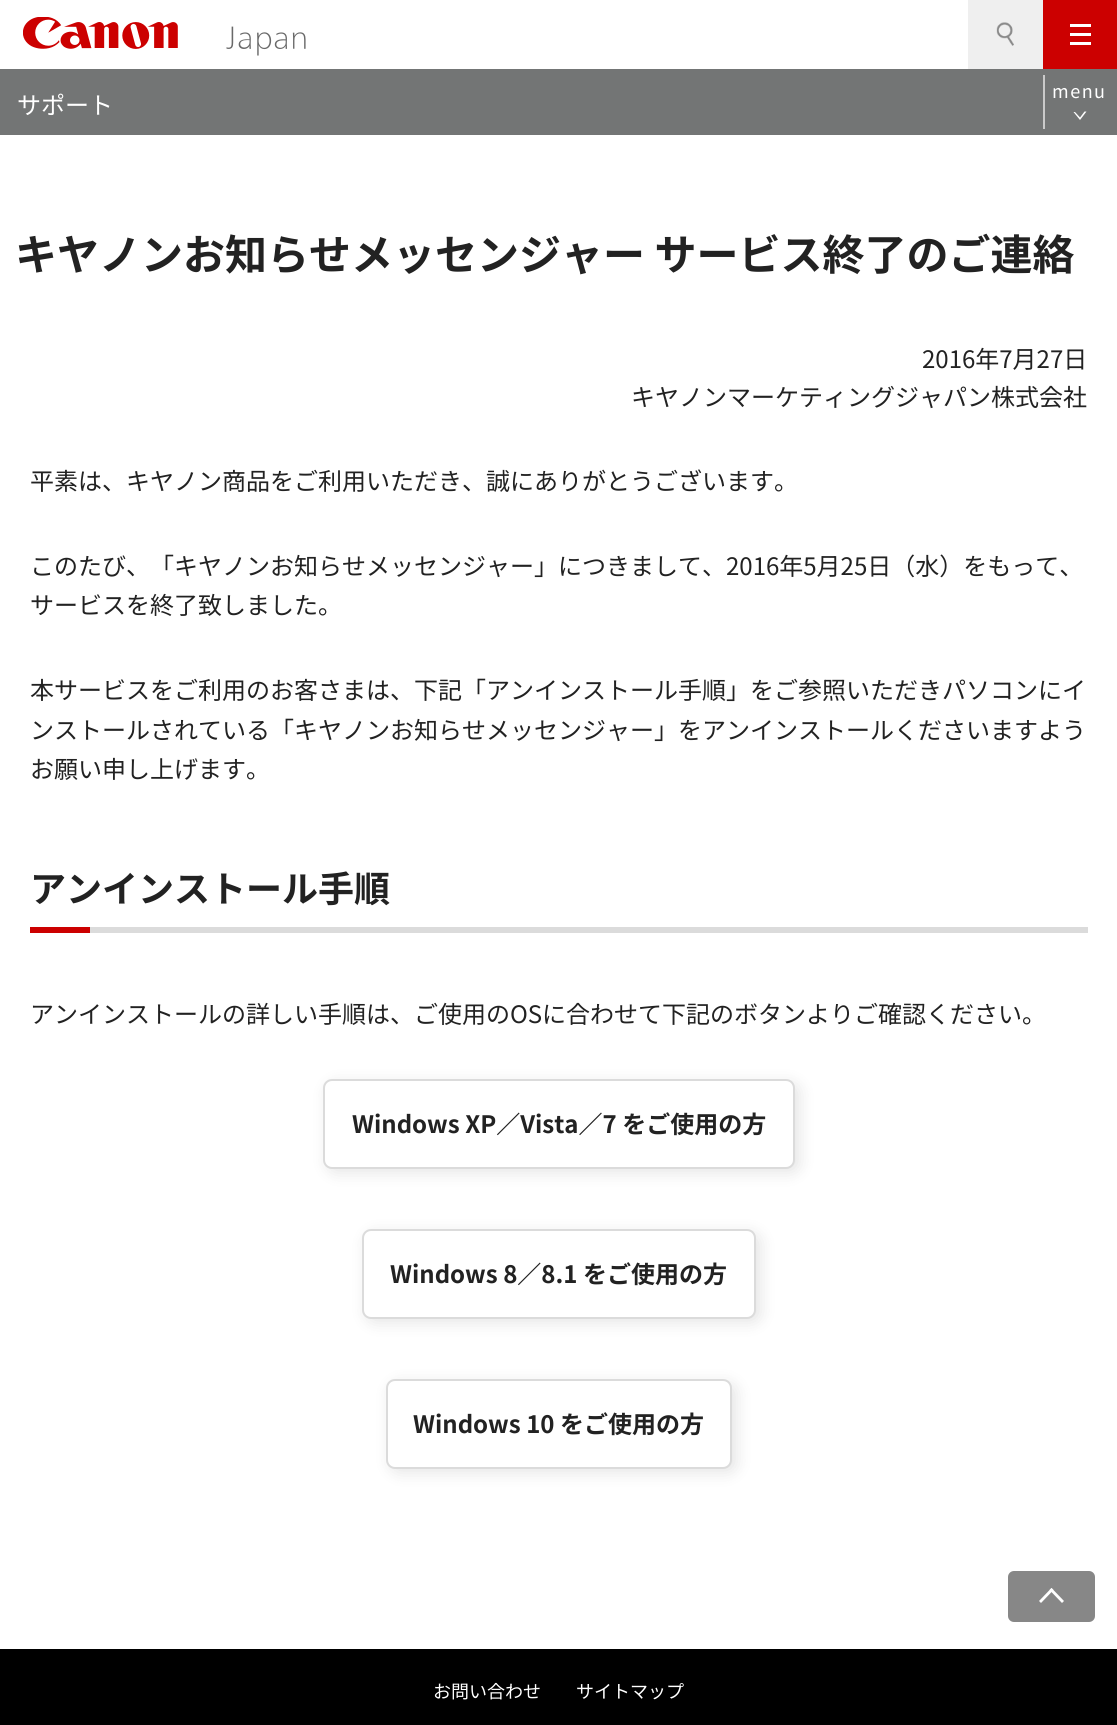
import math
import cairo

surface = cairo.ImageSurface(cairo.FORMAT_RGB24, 1117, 1725)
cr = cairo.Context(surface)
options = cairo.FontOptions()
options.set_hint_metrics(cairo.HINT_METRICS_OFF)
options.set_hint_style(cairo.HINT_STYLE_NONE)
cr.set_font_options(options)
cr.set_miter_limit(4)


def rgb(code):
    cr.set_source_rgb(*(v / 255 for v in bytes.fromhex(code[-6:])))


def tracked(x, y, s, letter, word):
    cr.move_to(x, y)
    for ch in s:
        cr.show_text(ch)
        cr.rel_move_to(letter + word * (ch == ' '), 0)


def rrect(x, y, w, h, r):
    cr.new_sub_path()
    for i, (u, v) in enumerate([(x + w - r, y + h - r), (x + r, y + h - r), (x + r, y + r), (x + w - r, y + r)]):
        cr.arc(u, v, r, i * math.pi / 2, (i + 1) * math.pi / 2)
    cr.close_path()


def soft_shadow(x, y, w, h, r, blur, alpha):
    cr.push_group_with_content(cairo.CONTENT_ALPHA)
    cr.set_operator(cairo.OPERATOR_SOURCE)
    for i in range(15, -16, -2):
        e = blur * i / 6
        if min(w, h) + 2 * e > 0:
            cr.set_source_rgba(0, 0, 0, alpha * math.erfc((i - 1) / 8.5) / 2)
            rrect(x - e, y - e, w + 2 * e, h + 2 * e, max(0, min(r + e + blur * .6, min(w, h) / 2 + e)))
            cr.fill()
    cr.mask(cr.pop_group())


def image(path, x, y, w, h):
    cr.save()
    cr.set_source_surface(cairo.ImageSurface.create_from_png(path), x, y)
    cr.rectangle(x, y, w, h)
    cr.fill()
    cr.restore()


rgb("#ffffff")
cr.paint()
image("img/1.png", 23, 17, 283, 39)
rgb("#efefef")
cr.rectangle(968, 0, 75, 69)
cr.fill()
image("img/2.png", 996, 22, 18, 24)
for x, y, w, h, color in [
    (1043, 0, 74, 69, "#cc0000"),
    (1070, 24, 21, 3, "#ffffff"),
    (1070, 33, 21, 3, "#ffffff"),
    (1070, 42, 21, 3, "#ffffff"),
    (0, 69, 1117, 66, "#737575"),
    (1043, 75, 2, 54, "#cacaca"),
]:
    rgb(color)
    cr.rectangle(x, y, w, h)
    cr.fill()
rgb("#ffffff")
cr.new_path()
cr.move_to(1086.5, 111.5)
cr.line_to(1080, 120)
cr.line_to(1080, 117.5)
cr.line_to(1084.5, 111.5)
cr.close_path()
cr.move_to(1080, 120)
cr.line_to(1073.5, 112)
cr.line_to(1075, 112)
cr.line_to(1080, 117.5)
cr.close_path()
cr.fill()
rgb("#cc0000")
cr.rectangle(30, 927, 60, 6)
cr.fill()
rgb("#dbdbdb")
cr.rectangle(90, 927, 998, 6)
cr.fill()
rgb("#000000")
soft_shadow(327, 1083, 473, 90, 9, 7.5, 0.1)
rgb("#ffffff")
rrect(324, 1080, 470, 88, 8)
cr.fill_preserve()
rgb("#dbdbdb")
cr.stroke()
rgb("#000000")
soft_shadow(366, 1233, 395, 90, 9, 7.5, 0.1)
rgb("#ffffff")
rrect(363, 1230, 392, 88, 8)
cr.fill_preserve()
rgb("#dbdbdb")
cr.stroke()
rgb("#000000")
soft_shadow(390, 1383, 347, 90, 9, 7.5, 0.1)
rgb("#ffffff")
rrect(387, 1380, 344, 88, 8)
cr.fill_preserve()
rgb("#dbdbdb")
cr.stroke()
rgb("#878787")
rrect(1008, 1571, 87, 51, 6)
cr.fill()
rgb("#ffffff")
cr.new_path()
cr.move_to(1051.5, 1588)
cr.line_to(1064, 1601)
cr.line_to(1062, 1603)
cr.line_to(1049.5, 1590)
cr.close_path()
cr.fill()
cr.new_path()
cr.move_to(1051.5, 1588)
cr.line_to(1053.5, 1590)
cr.line_to(1041, 1603)
cr.line_to(1039, 1601)
cr.close_path()
cr.fill()
rgb("#000000")
cr.rectangle(0, 1649, 1117, 76)
cr.fill()
cr.select_font_face("Noto Sans JP")
cr.set_font_size(24)
rgb("#ffffff")
cr.move_to(17, 114)
cr.show_text("サポート")
cr.set_font_size(18)
tracked(1052, 98, "menu", 1.5, 0)
cr.select_font_face("Noto Sans JP", cairo.FONT_SLANT_NORMAL, cairo.FONT_WEIGHT_BOLD)
cr.set_font_size(42)
rgb("#222222")
cr.move_to(15, 270)
cr.show_text("キヤノンお知らせメッセンジャー サービス終了のご連絡")
cr.select_font_face("Noto Sans JP")
cr.set_font_size(24)
for x, y, s in [
    (922, 368, "2016年7月27日"),
    (631, 406, "キヤノンマーケティングジャパン株式会社"),
    (30, 490, "平素は、キヤノン商品をご利用いただき、誠にありがとうございます。"),
    (30, 575, "このたび、「キヤノンお知らせメッセンジャー」につきまして、2016年5月25日（水）をもって、"),
    (30, 614, "サービスを終了致しました。"),
    (30, 699, "本サービスをご利用のお客さまは、下記「アンインストール手順」をご参照いただきパソコンにイ"),
    (30, 739, "ンストールされている「キヤノンお知らせメッセンジャー」をアンインストールくださいますよう"),
    (30, 778, "お願い申し上げます。"),
]:
    cr.move_to(x, y)
    cr.show_text(s)
cr.select_font_face("Noto Sans JP", cairo.FONT_SLANT_NORMAL, cairo.FONT_WEIGHT_BOLD)
cr.set_font_size(36)
cr.move_to(30, 902)
cr.show_text("アンインストール手順")
cr.select_font_face("Noto Sans JP")
cr.set_font_size(24)
cr.move_to(30, 1023)
cr.show_text("アンインストールの詳しい手順は、ご使用のOSに合わせて下記のボタンよりご確認ください。")
cr.select_font_face("Noto Sans JP", cairo.FONT_SLANT_NORMAL, cairo.FONT_WEIGHT_BOLD)
for x, y, s in [
    (352, 1133, "Windows XP／Vista／7 をご使用の方"),
    (390, 1283, "Windows 8／8.1 をご使用の方"),
    (413, 1433, "Windows 10 をご使用の方"),
]:
    cr.move_to(x, y)
    cr.show_text(s)
cr.select_font_face("Noto Sans JP")
cr.set_font_size(18)
rgb("#ffffff")
cr.move_to(433, 1698)
cr.show_text("お問い合わせ")
cr.move_to(576, 1698)
cr.show_text("サイトマップ")
surface.write_to_png("page.png")
